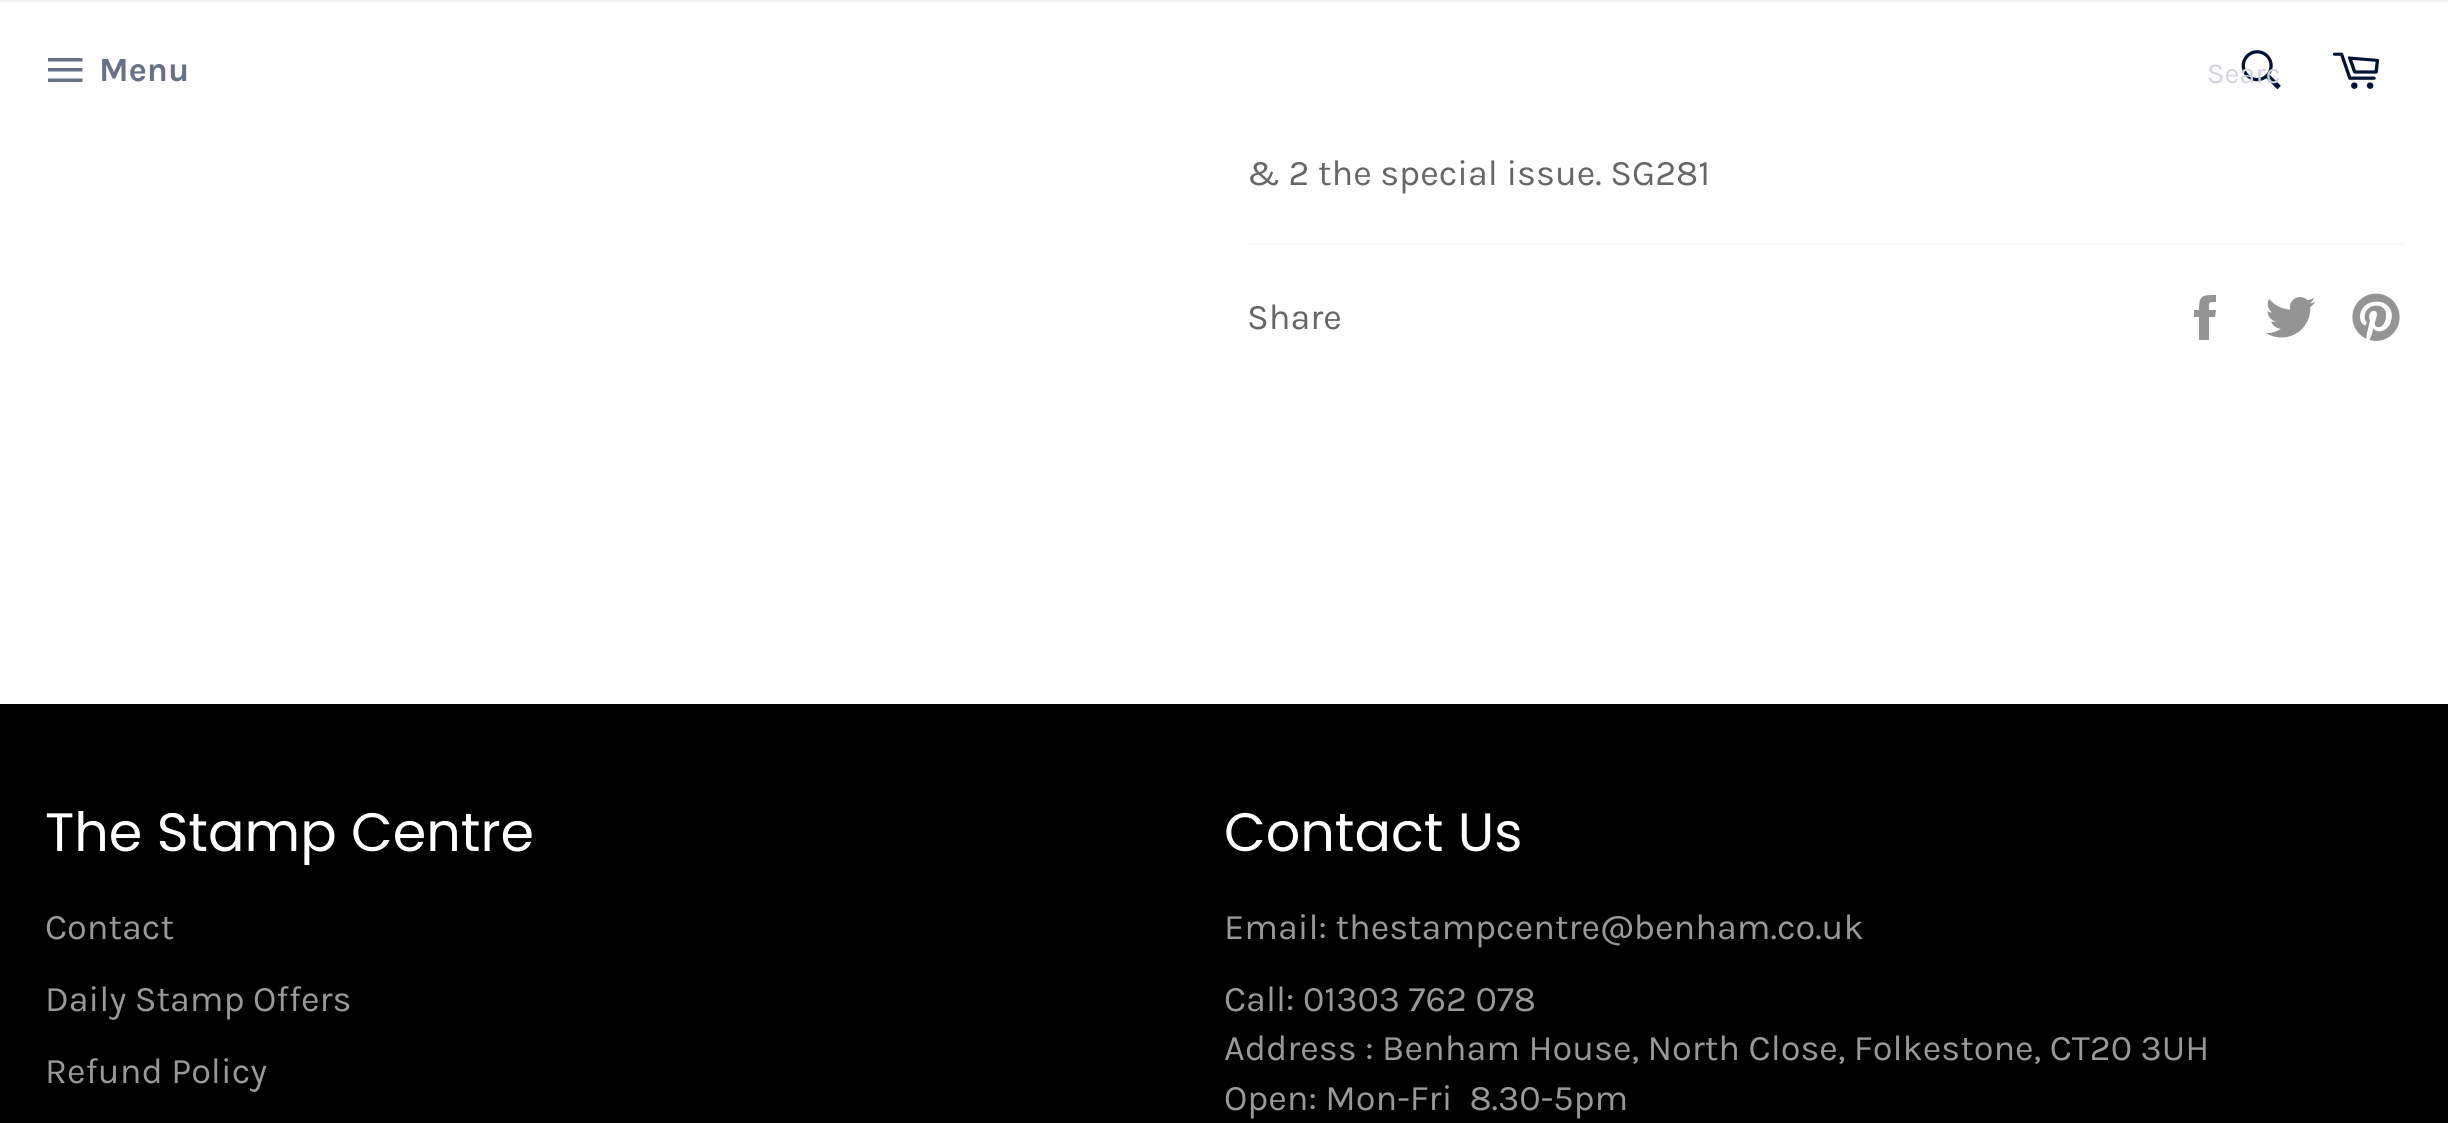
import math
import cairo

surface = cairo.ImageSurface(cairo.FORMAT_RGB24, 2448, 1123)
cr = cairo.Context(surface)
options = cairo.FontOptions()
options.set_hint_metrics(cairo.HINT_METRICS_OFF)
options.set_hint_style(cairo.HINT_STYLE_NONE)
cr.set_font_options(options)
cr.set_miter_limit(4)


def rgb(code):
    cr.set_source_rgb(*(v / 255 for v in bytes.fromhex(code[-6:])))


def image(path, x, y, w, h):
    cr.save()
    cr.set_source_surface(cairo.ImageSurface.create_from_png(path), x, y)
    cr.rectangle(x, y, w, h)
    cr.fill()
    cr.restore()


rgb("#ffffff")
cr.paint()
rgb("#f2f2f2")
cr.rectangle(0, 0, 2448, 2)
cr.fill()
rgb("#667187")
cr.new_path()
cr.move_to(48, 68)
cr.line_to(82.5, 68)
cr.line_to(82.5, 71.5)
cr.line_to(48, 71.5)
cr.close_path()
cr.move_to(48, 58)
cr.line_to(82.5, 58)
cr.line_to(82.5, 61.5)
cr.line_to(48, 61.5)
cr.close_path()
cr.move_to(48, 78.5)
cr.line_to(82.5, 78.5)
cr.line_to(82.5, 82)
cr.line_to(48, 82)
cr.close_path()
cr.fill()
image("img/1.png", 2241, 50, 40, 40)
image("img/2.png", 2332, 52, 48, 37)
rgb("#f7f7f7")
cr.rectangle(1247, 243, 1156, 2)
cr.fill()
rgb("#949494")
cr.new_path()
cr.move_to(2209, 310)
cr.curve_to(2209, 302, 2208, 302, 2216, 302)
cr.line_to(2216, 295)
cr.curve_to(2202, 295, 2199, 295, 2199, 310)
cr.line_to(2194, 310)
cr.line_to(2194, 317)
cr.line_to(2199, 317)
cr.line_to(2199, 340)
cr.line_to(2209, 340)
cr.line_to(2209, 317)
cr.line_to(2215, 317)
cr.line_to(2216, 310)
cr.close_path()
cr.fill()
image("img/3.png", 2266, 297, 50, 41)
image("img/4.png", 2352, 293, 48, 48)
rgb("#000000")
cr.rectangle(0, 704, 2448, 419)
cr.fill()
cr.select_font_face("Karla", cairo.FONT_SLANT_NORMAL, cairo.FONT_WEIGHT_BOLD)
cr.set_font_size(34)
rgb("#667187")
cr.move_to(99, 81)
cr.show_text("Menu")
cr.save()
cr.rectangle(2207, 56, 72, 34)
cr.clip()
cr.select_font_face("Karla")
cr.set_font_size(29)
rgb("#d2d6dc")
cr.move_to(2207, 83)
cr.show_text("Searc")
cr.restore()
cr.select_font_face("Karla")
cr.set_font_size(36)
rgb("#666666")
cr.move_to(1247, 185)
cr.show_text("& 2 the special issue. SG281")
cr.move_to(1247, 329)
cr.show_text("Share")
cr.select_font_face("Poppins")
cr.set_font_size(54)
rgb("#ffffff")
cr.move_to(45, 851)
cr.show_text("The Stamp Centre")
cr.select_font_face("Karla")
cr.set_font_size(36)
rgb("#999999")
for x, y, s in [
    (45, 939, "Contact"),
    (45, 1011, "Daily Stamp Offers"),
    (45, 1083, "Refund Policy"),
]:
    cr.move_to(x, y)
    cr.show_text(s)
cr.select_font_face("Poppins")
cr.set_font_size(54)
rgb("#ffffff")
cr.move_to(1224, 851)
cr.show_text("Contact Us")
cr.select_font_face("Karla")
cr.set_font_size(36)
rgb("#999999")
for x, y, s in [
    (1224, 939, "Email: thestampcentre@benham.co.uk"),
    (1224, 1011, "Call: 01303 762 078"),
    (1224, 1060, "Address : Benham House, North Close, Folkestone, CT20 3UH"),
    (1224, 1110, "Open: Mon-Fri  8.30-5pm"),
]:
    cr.move_to(x, y)
    cr.show_text(s)
surface.write_to_png("page.png")
